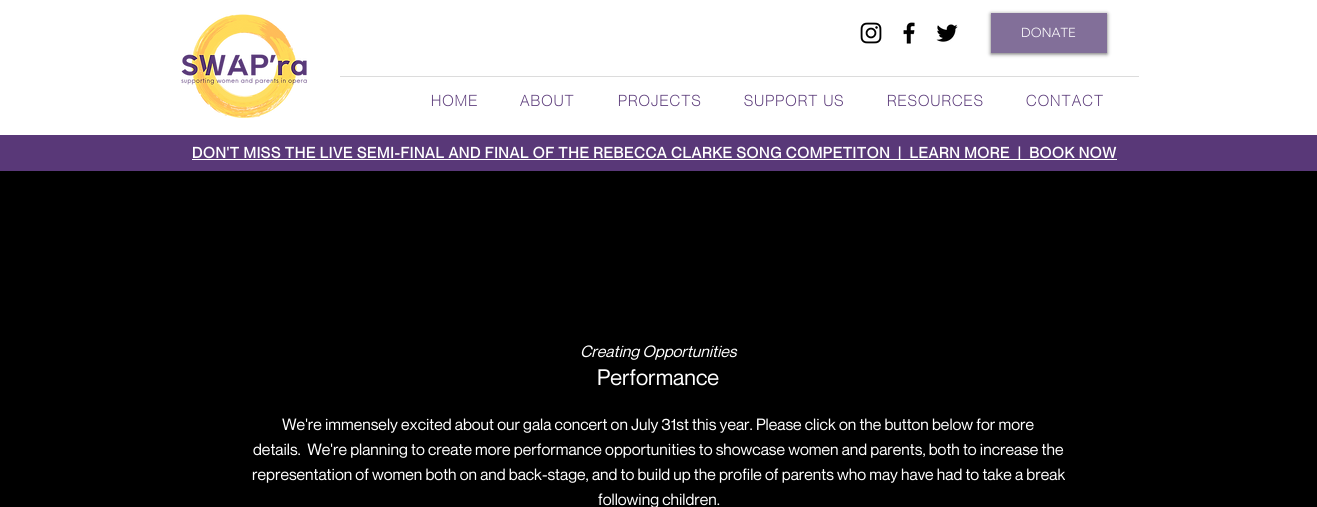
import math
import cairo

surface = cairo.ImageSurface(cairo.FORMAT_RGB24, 1317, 507)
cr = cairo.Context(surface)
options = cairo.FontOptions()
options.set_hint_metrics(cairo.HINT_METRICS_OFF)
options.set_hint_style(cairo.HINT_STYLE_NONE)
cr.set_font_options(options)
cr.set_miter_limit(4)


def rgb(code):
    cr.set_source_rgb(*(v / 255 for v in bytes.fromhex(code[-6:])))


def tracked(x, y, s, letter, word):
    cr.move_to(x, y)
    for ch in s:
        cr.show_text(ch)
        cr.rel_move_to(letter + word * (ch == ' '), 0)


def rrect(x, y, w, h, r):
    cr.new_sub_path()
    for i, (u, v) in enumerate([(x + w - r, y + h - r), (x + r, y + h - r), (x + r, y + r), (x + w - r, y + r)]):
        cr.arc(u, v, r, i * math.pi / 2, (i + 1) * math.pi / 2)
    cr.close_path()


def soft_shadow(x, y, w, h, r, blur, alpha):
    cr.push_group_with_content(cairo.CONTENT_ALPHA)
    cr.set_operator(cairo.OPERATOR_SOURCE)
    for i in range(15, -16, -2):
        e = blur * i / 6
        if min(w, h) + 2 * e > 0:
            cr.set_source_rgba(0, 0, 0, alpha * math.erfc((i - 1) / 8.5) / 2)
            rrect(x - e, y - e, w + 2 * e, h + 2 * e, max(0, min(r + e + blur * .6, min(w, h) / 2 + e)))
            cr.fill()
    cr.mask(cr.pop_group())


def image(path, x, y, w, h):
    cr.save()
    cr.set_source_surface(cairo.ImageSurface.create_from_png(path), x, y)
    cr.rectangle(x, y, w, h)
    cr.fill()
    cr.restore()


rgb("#ffffff")
cr.paint()
image("img/1.png", 181, 14, 126, 104)
image("img/2.png", 860, 22, 22, 22)
image("img/3.png", 903, 22, 12, 22)
image("img/4.png", 936, 24, 22, 18)
rgb("#000000")
soft_shadow(991, 14, 116, 40, 0, 2, 0.6)
for x, y, w, h, color in [
    (991, 13, 116, 40, "#826f99"),
    (340, 76, 799, 1, "#dcdcdc"),
    (0, 135, 1317, 36, "#593878"),
    (192, 159, 925, 1, "#ffffff"),
    (0, 171, 1317, 336, "#000000"),
]:
    rgb(color)
    cr.rectangle(x, y, w, h)
    cr.fill()
cr.select_font_face("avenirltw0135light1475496 Light")
cr.set_font_size(13)
rgb("#ffffff")
cr.move_to(1021, 37)
cr.show_text("DONATE")
cr.select_font_face("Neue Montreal", cairo.FONT_SLANT_NORMAL, cairo.FONT_WEIGHT_BOLD)
cr.set_font_size(15)
rgb("#593878")
for x, y, s in [
    (431, 106, "HOME"),
    (520, 106, "ABOUT"),
    (618, 106, "PROJECTS"),
    (744, 106, "SUPPORT US"),
    (887, 106, "RESOURCES"),
    (1026, 106, "CONTACT"),
]:
    tracked(x, y, s, 1.5, 0)
cr.select_font_face("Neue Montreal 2", cairo.FONT_SLANT_NORMAL, cairo.FONT_WEIGHT_BOLD)
rgb("#ffffff")
tracked(192, 158, "DON'T MISS THE LIVE SEMI-FINAL AND FINAL OF THE REBECCA CLARKE SONG COMPETITON  |  LEARN MORE  |  BOOK NOW", 0.75, 0)
cr.select_font_face("Neue Montreal", cairo.FONT_SLANT_ITALIC)
cr.set_font_size(16)
cr.move_to(580, 357)
cr.show_text("Creating Opportunities")
cr.select_font_face("Neue Montreal")
cr.set_font_size(22)
cr.move_to(597, 385)
cr.show_text("Performance")
cr.set_font_size(16)
for x, y, s in [
    (282, 430, "We're immensely excited about our gala concert on July 31st this year. Please click on the button below for more"),
    (253, 455, "details.  We're planning to create more performance opportunities to showcase women and parents, both to increase the"),
    (252, 480, "representation of women both on and back-stage, and to build up the profile of parents who may have had to take a break"),
    (598, 505, "following children."),
]:
    cr.move_to(x, y)
    cr.show_text(s)
surface.write_to_png("page.png")
